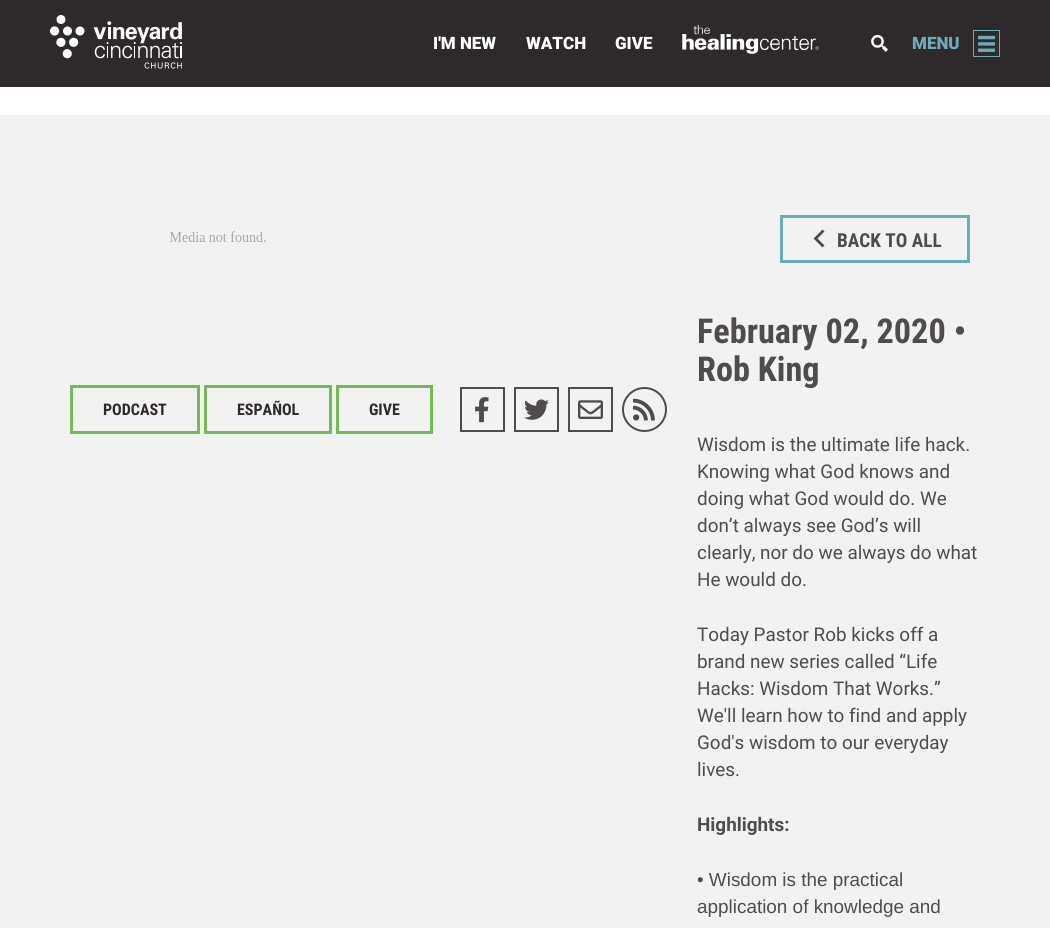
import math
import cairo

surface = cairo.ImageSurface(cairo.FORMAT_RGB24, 1050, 928)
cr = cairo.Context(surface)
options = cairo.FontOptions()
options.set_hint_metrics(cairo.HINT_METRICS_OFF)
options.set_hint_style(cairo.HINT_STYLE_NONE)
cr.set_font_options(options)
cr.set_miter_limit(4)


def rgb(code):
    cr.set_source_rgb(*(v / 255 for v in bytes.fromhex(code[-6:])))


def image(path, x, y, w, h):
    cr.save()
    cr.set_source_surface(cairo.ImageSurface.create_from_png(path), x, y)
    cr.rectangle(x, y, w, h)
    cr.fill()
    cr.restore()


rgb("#ffffff")
cr.paint()
rgb("#2e2a2b")
cr.rectangle(0, 0, 1050, 87)
cr.fill()
image("img/1.png", 50, 15, 132, 54)
image("img/2.png", 682, 24, 137, 30)
image("img/3.png", 871, 35, 17, 17)
cr.rectangle(973.5, 30.5, 26, 26)
rgb("#68adb8")
cr.set_line_width(1)
cr.stroke()
image("img/4.png", 978, 35, 18, 17)
rgb("#f2f2f2")
cr.rectangle(0, 115, 1050, 813)
cr.fill()
image("img/5.png", 169, 231, 97, 11)
cr.rectangle(71.5, 386.5, 127, 46)
rgb("#71bd52")
cr.set_line_width(3)
cr.stroke()
cr.rectangle(205.5, 386.5, 125, 46)
cr.stroke()
cr.rectangle(337.5, 386.5, 94, 46)
cr.stroke()
cr.rectangle(461, 388, 43, 43)
rgb("#4f4c4d")
cr.set_line_width(2)
cr.stroke()
image("img/6.png", 475, 397, 14, 26)
cr.rectangle(515, 388, 43, 43)
cr.stroke()
image("img/7.png", 524, 399, 25, 21)
cr.rectangle(569, 388, 43, 43)
cr.stroke()
image("img/8.png", 578, 400, 25, 19)
cr.arc(644.5, 409.5, 21.5, 0, 2 * math.pi)
cr.stroke()
image("img/9.png", 633, 398, 22, 23)
cr.rectangle(781.5, 216.5, 187, 45)
rgb("#68adb8")
cr.set_line_width(3)
cr.stroke()
rgb("#4f4c4d")
cr.new_path()
cr.move_to(822.5, 247.5)
cr.line_to(813.5, 238.5)
cr.line_to(822.5, 229.5)
cr.line_to(824.5, 231.5)
cr.line_to(817.5, 238.5)
cr.line_to(824.5, 245.5)
cr.close_path()
cr.fill()
cr.select_font_face("Roboto Black")
cr.set_font_size(17)
rgb("#ffffff")
for x, y, s in [
    (433, 49, "I'M NEW"),
    (526, 49, "WATCH"),
    (615, 49, "GIVE"),
]:
    cr.move_to(x, y)
    cr.show_text(s)
rgb("#68adb8")
cr.move_to(912, 49)
cr.show_text("MENU")
cr.select_font_face("Roboto Condensed", cairo.FONT_SLANT_NORMAL, cairo.FONT_WEIGHT_BOLD)
cr.set_font_size(16)
rgb("#2e2a2b")
for x, y, s in [
    (103, 415, "PODCAST"),
    (237, 415, "ESPAÑOL"),
    (369, 415, "GIVE"),
]:
    cr.move_to(x, y)
    cr.show_text(s)
cr.set_font_size(19.25)
rgb("#4f4c4d")
cr.move_to(837, 247)
cr.show_text("BACK TO ALL")
cr.set_font_size(34.25)
cr.move_to(697, 343)
cr.show_text("February 02, 2020 •")
cr.move_to(697, 381)
cr.show_text("Rob King")
cr.select_font_face("Roboto")
cr.set_font_size(18.9)
for x, y, s in [
    (697, 451, "Wisdom is the ultimate life hack."),
    (697, 478, "Knowing what God knows and"),
    (697, 505, "doing what God would do. We"),
    (697, 532, "don’t always see God’s will"),
    (697, 559, "clearly, nor do we always do what"),
    (697, 586, "He would do."),
    (697, 641, "Today Pastor Rob kicks off a"),
    (697, 668, "brand new series called “Life"),
    (697, 695, "Hacks: Wisdom That Works.”"),
    (697, 722, "We'll learn how to find and apply"),
    (697, 749, "God's wisdom to our everyday"),
    (697, 776, "lives."),
]:
    cr.move_to(x, y)
    cr.show_text(s)
cr.select_font_face("Roboto", cairo.FONT_SLANT_NORMAL, cairo.FONT_WEIGHT_BOLD)
cr.move_to(697, 831)
cr.show_text("Highlights:")
cr.select_font_face("Liberation Sans")
cr.move_to(697, 886)
cr.show_text("• Wisdom is the practical")
cr.move_to(697, 913)
cr.show_text("application of knowledge and")
surface.write_to_png("page.png")
